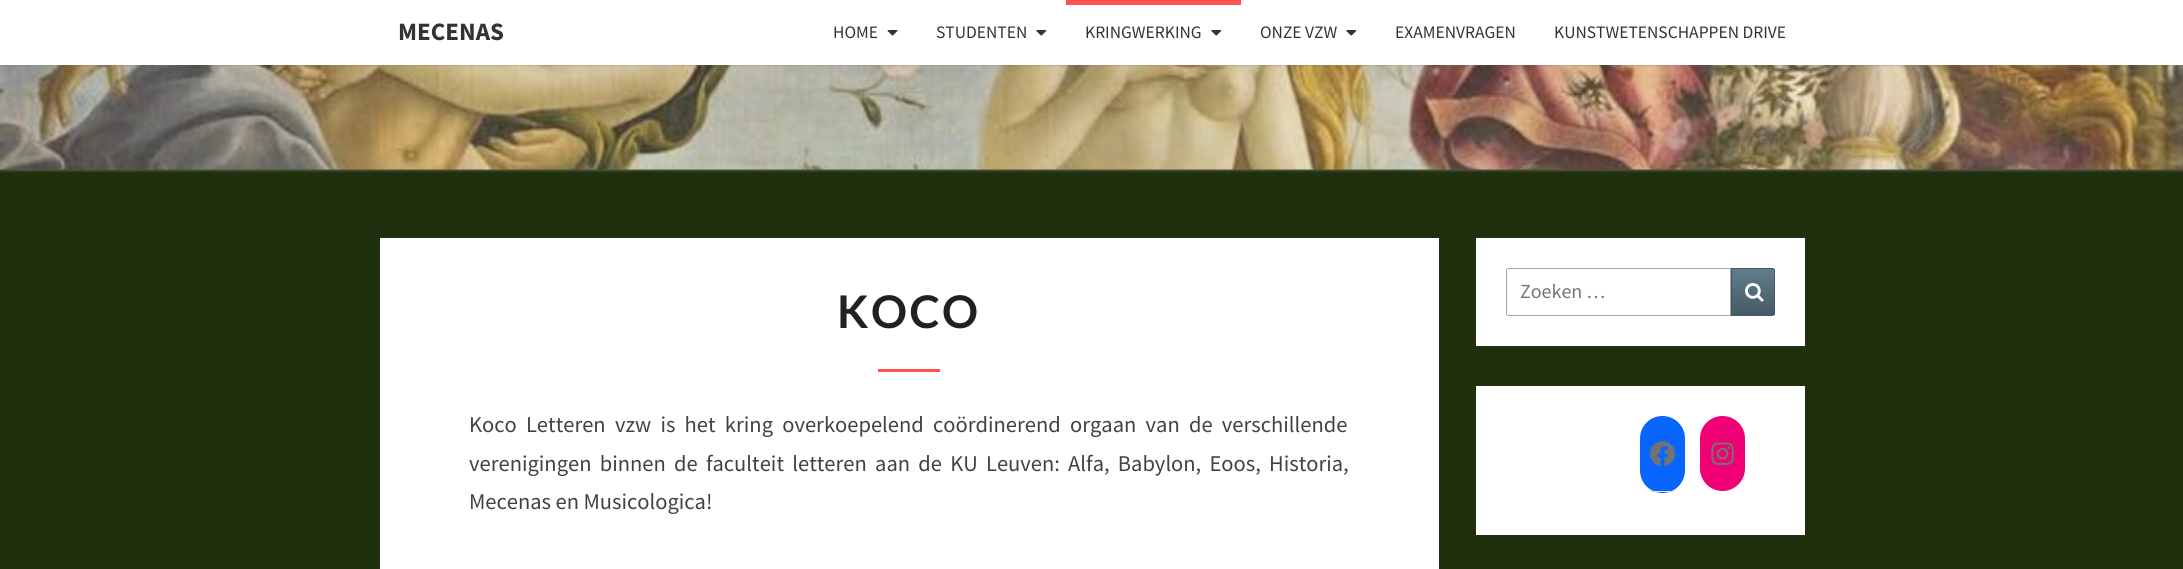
import math
import cairo

surface = cairo.ImageSurface(cairo.FORMAT_RGB24, 2183, 569)
cr = cairo.Context(surface)
options = cairo.FontOptions()
options.set_hint_metrics(cairo.HINT_METRICS_OFF)
options.set_hint_style(cairo.HINT_STYLE_NONE)
cr.set_font_options(options)
cr.set_miter_limit(4)


def rgb(code):
    cr.set_source_rgb(*(v / 255 for v in bytes.fromhex(code[-6:])))


def tracked(x, y, s, letter, word):
    cr.move_to(x, y)
    for ch in s:
        cr.show_text(ch)
        cr.rel_move_to(letter + word * (ch == ' '), 0)


def rrect(x, y, w, h, r):
    cr.new_sub_path()
    for i, (u, v) in enumerate([(x + w - r, y + h - r), (x + r, y + h - r), (x + r, y + r), (x + w - r, y + r)]):
        cr.arc(u, v, r, i * math.pi / 2, (i + 1) * math.pi / 2)
    cr.close_path()


def soft_shadow(x, y, w, h, r, blur, alpha):
    cr.push_group_with_content(cairo.CONTENT_ALPHA)
    cr.set_operator(cairo.OPERATOR_SOURCE)
    for i in range(15, -16, -2):
        e = blur * i / 6
        if min(w, h) + 2 * e > 0:
            cr.set_source_rgba(0, 0, 0, alpha * math.erfc((i - 1) / 8.5) / 2)
            rrect(x - e, y - e, w + 2 * e, h + 2 * e, max(0, min(r + e + blur * .6, min(w, h) / 2 + e)))
            cr.fill()
    cr.mask(cr.pop_group())


def image(path, x, y, w, h):
    cr.save()
    cr.set_source_surface(cairo.ImageSurface.create_from_png(path), x, y)
    cr.rectangle(x, y, w, h)
    cr.fill()
    cr.restore()


rgb("#20300e")
cr.paint()
rgb("#b6b6b6")
soft_shadow(-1, -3, 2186, 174, 0, 1, 0.3)
image("img/1.png", 0, 65, 2183, 105)
rgb("#646464")
soft_shadow(0, 1, 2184, 65, 0, 0.5, 0.2)
rgb("#ffffff")
cr.rectangle(0, 0, 2183, 65)
cr.fill()
image("img/2.png", 887, 30, 11, 6)
image("img/3.png", 1036, 30, 11, 6)
rgb("#ff5252")
cr.rectangle(1066, 0, 175, 5)
cr.fill()
image("img/3.png", 1211, 30, 11, 6)
image("img/3.png", 1346, 30, 11, 6)
rgb("#ffffff")
cr.rectangle(1476, 238, 329, 108)
cr.fill()
cr.new_path()
cr.move_to(1508.5, 268.5)
cr.line_to(1730.5, 268.5)
cr.line_to(1730.5, 315.5)
cr.line_to(1508.5, 315.5)
cr.curve_to(1507.5, 315.5, 1506.5, 314.5, 1506.5, 313.5)
cr.line_to(1506.5, 270.5)
cr.curve_to(1506.5, 269.5, 1507.5, 268.5, 1508.5, 268.5)
cr.close_path()
rgb("#aaa1a8")
cr.set_line_width(1)
cr.stroke()
gradient = cairo.LinearGradient(1753, 269, 1753, 315)
gradient.add_color_stop_rgba(0, 0.376, 0.49, 0.545, 1)
gradient.add_color_stop_rgba(1, 0.271, 0.353, 0.392, 1)
cr.set_source(gradient)
cr.rectangle(1732, 269, 43, 46)
cr.fill()
cr.new_path()
cr.move_to(1731.5, 268.5)
cr.line_to(1772.5, 268.5)
cr.curve_to(1773.5, 268.5, 1774.5, 269.5, 1774.5, 270.5)
cr.line_to(1774.5, 313.5)
cr.curve_to(1774.5, 314.5, 1773.5, 315.5, 1772.5, 315.5)
cr.line_to(1731.5, 315.5)
cr.close_path()
rgb("#455a64")
cr.stroke()
image("img/4.png", 1745, 283, 19, 19)
rgb("#ffffff")
cr.rectangle(1476, 386, 329, 149)
cr.fill()
rgb("#0866ff")
rrect(1640, 416, 45, 77, 22.5)
cr.fill()
rgb("#dddddd")
cr.rectangle(1651, 491, 23, 1)
cr.fill()
image("img/5.png", 1650, 441, 25, 26)
rgb("#f00075")
rrect(1700, 416, 45, 75, 22.5)
cr.fill()
image("img/6.png", 1711, 442, 23, 23)
rgb("#ffffff")
cr.rectangle(380, 238, 1059, 331)
cr.fill()
rgb("#ff5252")
cr.rectangle(878, 369, 62, 3)
cr.fill()
cr.select_font_face("Source Sans Pro", cairo.FONT_SLANT_NORMAL, cairo.FONT_WEIGHT_BOLD)
cr.set_font_size(25)
rgb("#333333")
cr.move_to(398, 40)
cr.show_text("MECENAS")
cr.select_font_face("Source Sans Pro")
cr.set_font_size(17.5)
for x, y, s in [
    (833, 38, "HOME"),
    (936, 38, "STUDENTEN"),
    (1085, 38, "KRINGWERKING"),
    (1260, 38, "ONZE VZW"),
    (1395, 38, "EXAMENVRAGEN"),
    (1554, 38, "KUNSTWETENSCHAPPEN DRIVE"),
]:
    cr.move_to(x, y)
    cr.show_text(s)
cr.set_font_size(20)
rgb("#757575")
cr.move_to(1520, 298)
cr.show_text("Zoeken …")
cr.select_font_face("Lato", cairo.FONT_SLANT_NORMAL, cairo.FONT_WEIGHT_BOLD)
cr.set_font_size(45)
rgb("#212121")
tracked(837, 328, "KOCO", 2.5, 0)
cr.select_font_face("Source Sans Pro")
cr.set_font_size(22.5)
rgb("#424242")
tracked(469, 432, "Koco Letteren vzw is het kring overkoepelend coördinerend orgaan van de verschillende", 0, 4.75)
tracked(469, 471, "verenigingen binnen de faculteit letteren aan de KU Leuven: Alfa, Babylon, Eoos, Historia,", 0, 3.75)
cr.move_to(469, 509)
cr.show_text("Mecenas en Musicologica!")
surface.write_to_png("page.png")
